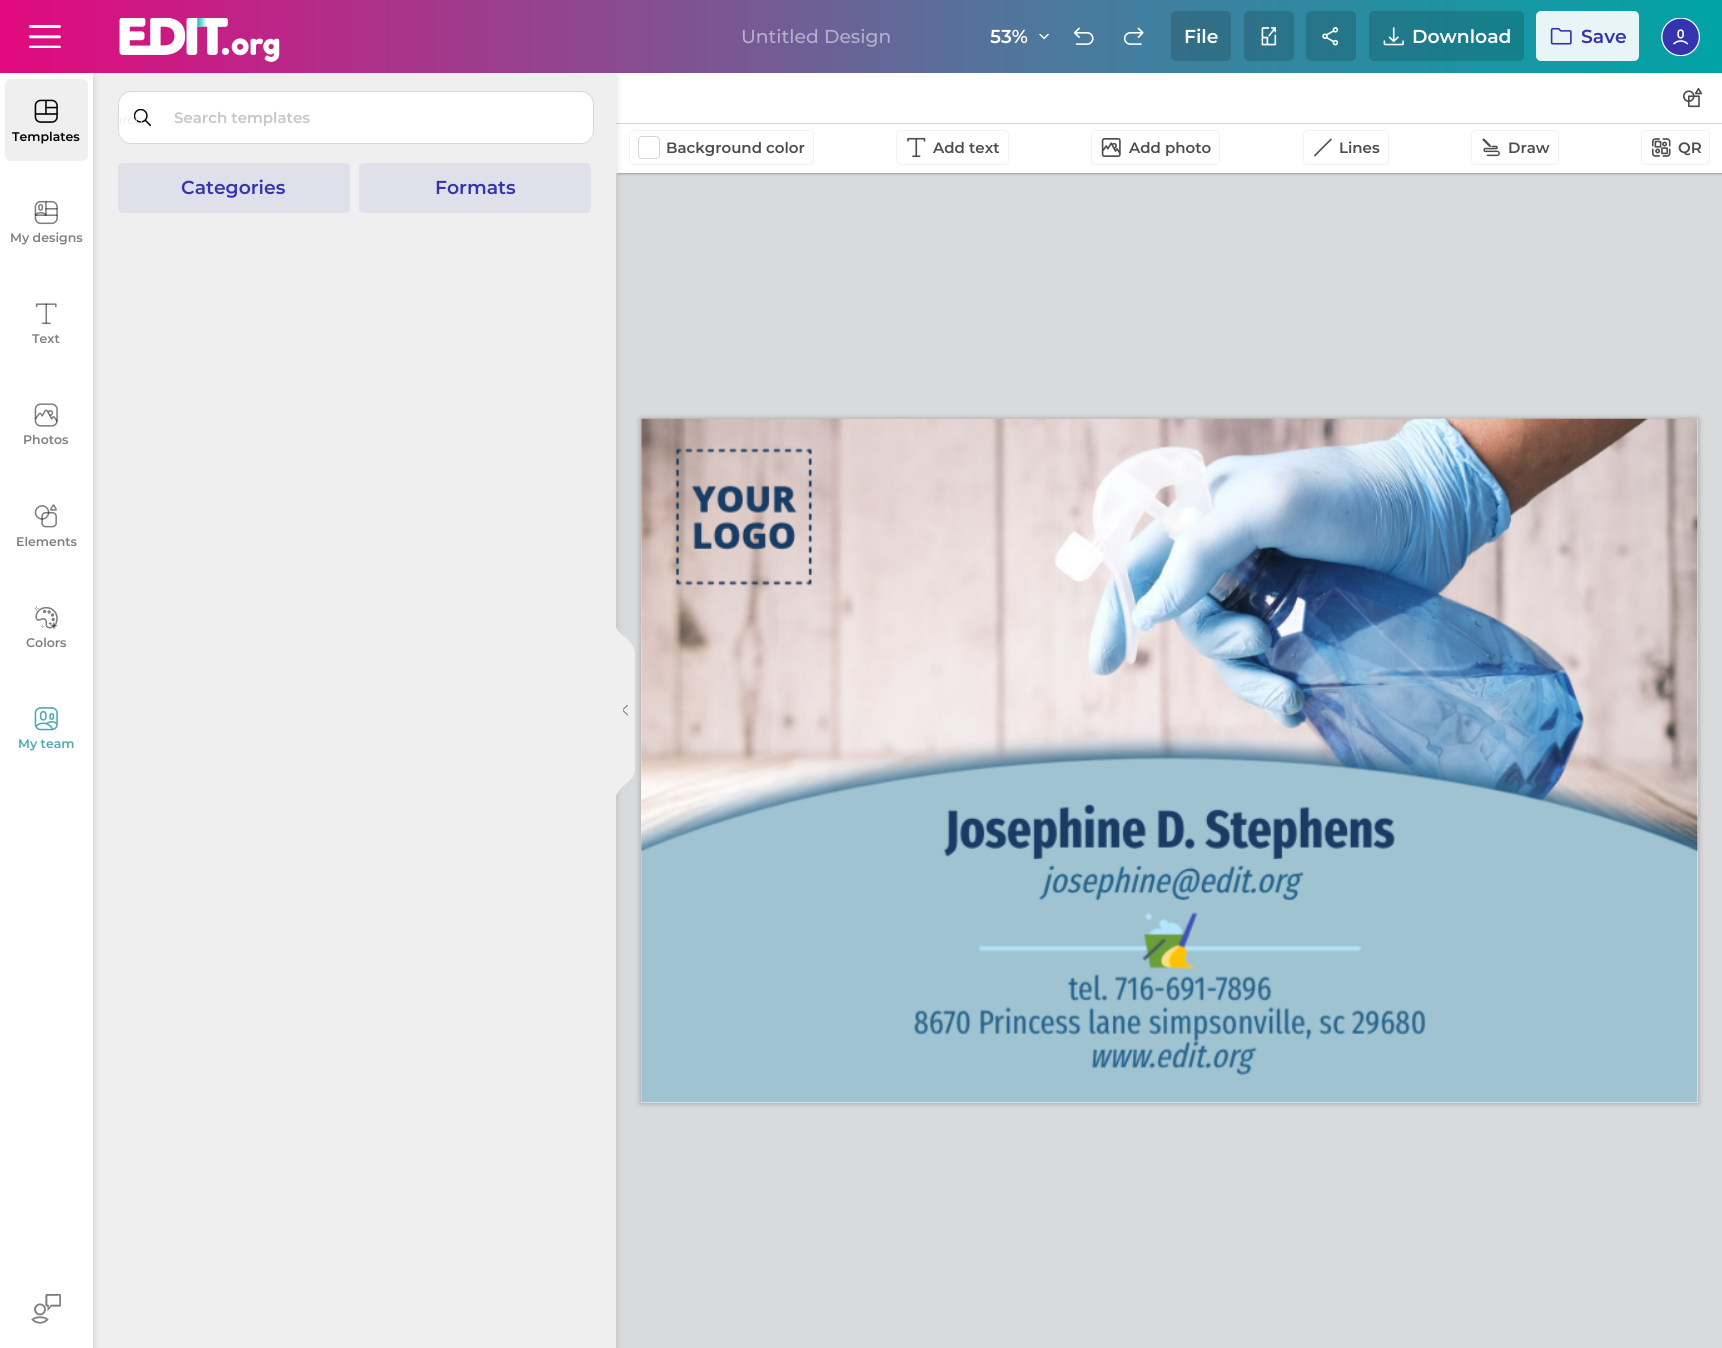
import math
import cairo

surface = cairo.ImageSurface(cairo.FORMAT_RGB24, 1722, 1348)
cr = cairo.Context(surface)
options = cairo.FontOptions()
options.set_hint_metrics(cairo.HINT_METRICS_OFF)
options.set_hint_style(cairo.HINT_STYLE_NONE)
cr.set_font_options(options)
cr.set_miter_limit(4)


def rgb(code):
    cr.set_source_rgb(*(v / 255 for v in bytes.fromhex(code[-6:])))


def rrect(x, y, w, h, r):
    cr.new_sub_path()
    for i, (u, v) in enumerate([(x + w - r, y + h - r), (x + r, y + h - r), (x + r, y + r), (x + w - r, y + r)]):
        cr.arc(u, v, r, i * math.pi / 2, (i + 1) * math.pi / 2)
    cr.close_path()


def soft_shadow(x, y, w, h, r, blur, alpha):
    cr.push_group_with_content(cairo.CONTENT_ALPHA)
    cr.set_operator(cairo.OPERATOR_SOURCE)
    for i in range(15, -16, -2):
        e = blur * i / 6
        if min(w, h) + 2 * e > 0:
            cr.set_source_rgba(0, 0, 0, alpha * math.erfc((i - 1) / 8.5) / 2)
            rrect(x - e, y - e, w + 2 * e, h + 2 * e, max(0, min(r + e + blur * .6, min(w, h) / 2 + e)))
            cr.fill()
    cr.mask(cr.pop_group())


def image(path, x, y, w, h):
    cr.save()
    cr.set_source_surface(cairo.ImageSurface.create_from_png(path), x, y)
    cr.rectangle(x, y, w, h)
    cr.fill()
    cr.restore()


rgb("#d8dadb")
cr.paint()
rgb("#000000")
soft_shadow(618, 74, 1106, 100, 0, 1, 0.3)
rgb("#ffffff")
cr.rectangle(616, 73, 1106, 100)
cr.fill()
rgb("#d9d9d9")
cr.rectangle(616, 123, 1106, 1)
cr.fill()
rgb("#000000")
soft_shadow(0, 76, 616, 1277, 0, 4, 0.16)
soft_shadow(641, 419, 1057, 684, 0, 3, 0.3)
rgb("#efefef")
cr.new_path()
cr.move_to(627, 783)
cr.curve_to(635, 777, 635, 772, 635, 764)
cr.line_to(635, 658)
cr.curve_to(635, 651, 635, 646, 627, 639)
cr.curve_to(617, 632, 615, 625, 615, 625)
cr.line_to(615, 798)
cr.curve_to(615, 798, 617, 790, 627, 783)
cr.fill()
cr.rectangle(93, 73, 523, 1275)
cr.fill()
rgb("#000000")
soft_shadow(0, 76, 93, 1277, 0, 4, 0.16)
gradient = cairo.LinearGradient(0, 36, 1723, 36)
gradient.add_color_stop_rgba(0, 0.89, 0.035, 0.494, 1)
gradient.add_color_stop_rgba(0.6, 0.306, 0.467, 0.616, 1)
gradient.add_color_stop_rgba(1, 0, 0.643, 0.651, 1)
cr.set_source(gradient)
cr.rectangle(0, 0, 1722, 73)
cr.fill()
image("img/1.png", 29, 25, 32, 23)
image("img/2.png", 119, 18, 161, 44)
image("img/3.png", 1039, 34, 11, 6)
image("img/4.png", 1073, 27, 21, 18)
image("img/5.png", 1123, 27, 21, 18)
cr.set_source_rgba(0, 0, 0, 0.15)
rrect(1171, 11, 60, 50, 5)
cr.fill()
rrect(1244, 11, 50, 50, 5)
cr.fill()
image("img/6.png", 1261, 27, 16, 19)
rrect(1306, 11, 50, 50, 5)
cr.fill()
image("img/7.png", 1322, 27, 17, 19)
rrect(1369, 11, 155, 50, 5)
cr.fill()
image("img/8.png", 1383, 27, 21, 19)
cr.set_source_rgba(1, 1, 1, 0.9)
rrect(1536, 11, 103, 50, 5)
cr.fill()
image("img/9.png", 1550, 27, 22, 18)
image("img/10.png", 1661, 18, 39, 38)
rgb("#ffffff")
cr.rectangle(0, 73, 93, 1275)
cr.fill()
rgb("#efefef")
rrect(5, 79, 83, 82, 6)
cr.fill()
image("img/11.png", 34, 99, 24, 24)
image("img/12.png", 34, 200, 24, 25)
image("img/13.png", 35, 303, 22, 22)
image("img/14.png", 34, 403, 24, 24)
image("img/15.png", 34, 504, 23, 24)
image("img/16.png", 34, 606, 24, 24)
image("img/17.png", 34, 707, 24, 24)
image("img/18.png", 31, 1294, 30, 30)
rgb("#ffffff")
rrect(118.5, 91.5, 475, 52, 12.5)
cr.fill_preserve()
rgb("#d7dadb")
cr.set_line_width(1)
cr.stroke()
image("img/19.png", 134, 109, 17, 17)
rgb("#e0e0ea")
rrect(118, 163, 232, 50, 5)
cr.fill()
rrect(359, 163, 232, 50, 5)
cr.fill()
image("img/20.png", 623, 705, 5, 11)
image("img/21.png", 1682, 87, 20, 21)
rrect(629.5, 130.5, 184, 34, 4.5)
rgb("#f2f2f2")
cr.stroke()
rrect(638.5, 136.5, 21, 22, 3.5)
rgb("#d6d4d4")
cr.stroke()
rrect(896.5, 130.5, 112, 34, 4.5)
rgb("#f2f2f2")
cr.stroke()
image("img/22.png", 907, 137, 19, 21)
rrect(1091.5, 130.5, 128, 34, 4.5)
cr.stroke()
image("img/23.png", 1101, 138, 20, 19)
rrect(1303.5, 130.5, 85, 34, 4.5)
cr.stroke()
image("img/24.png", 1314, 138, 18, 19)
rrect(1471.5, 130.5, 87, 34, 4.5)
cr.stroke()
image("img/25.png", 1482, 138, 18, 19)
rrect(1641.5, 130.5, 68, 34, 4.5)
cr.stroke()
image("img/26.png", 1652, 138, 19, 19)
rgb("#ffffff")
cr.rectangle(641, 419, 1057, 684)
cr.fill()
image("img/27.png", 641, 418, 1057, 685)
cr.select_font_face("Montserrat Medium")
cr.set_font_size(18.75)
rgb("#b6afcb")
cr.move_to(741, 43)
cr.show_text("Untitled Design")
cr.select_font_face("Montserrat SemiBold")
rgb("#ffffff")
for x, y, s in [
    (990, 43, "53%"),
    (1184, 43, "File"),
    (1412, 43, "Download"),
]:
    cr.move_to(x, y)
    cr.show_text(s)
rgb("#3533ad")
cr.move_to(1581, 43)
cr.show_text("Save")
cr.select_font_face("Montserrat")
cr.set_font_size(12.5)
rgb("#ebebeb")
cr.move_to(115, 124)
cr.show_text("arch")
cr.select_font_face("Montserrat SemiBold")
rgb("#000000")
cr.move_to(12, 141)
cr.show_text("Templates")
rgb("#808080")
for x, y, s in [
    (10, 242, "My designs"),
    (32, 343, "Text"),
    (23, 444, "Photos"),
    (16, 546, "Elements"),
    (26, 647, "Colors"),
]:
    cr.move_to(x, y)
    cr.show_text(s)
rgb("#4fa9b1")
cr.move_to(18, 748)
cr.show_text("My team")
cr.set_font_size(15)
rgb("#c6c6c6")
cr.move_to(174, 123)
cr.show_text("Search templates")
cr.set_font_size(18.75)
rgb("#3533ad")
cr.move_to(181, 194)
cr.show_text("Categories")
cr.move_to(435, 194)
cr.show_text("Formats")
cr.set_font_size(15)
rgb("#4d4d4d")
for x, y, s in [
    (666, 153, "Background color"),
    (933, 153, "Add text"),
    (1129, 153, "Add photo"),
    (1339, 153, "Lines"),
    (1508, 153, "Draw"),
    (1678, 153, "QR"),
]:
    cr.move_to(x, y)
    cr.show_text(s)
surface.write_to_png("page.png")
